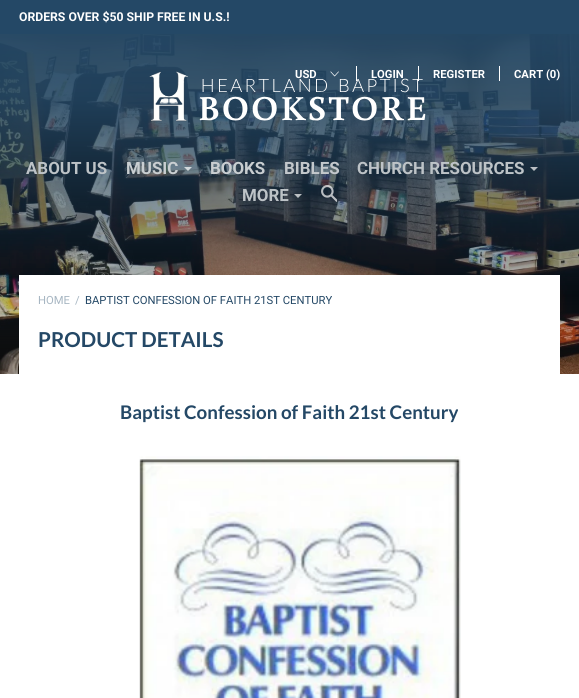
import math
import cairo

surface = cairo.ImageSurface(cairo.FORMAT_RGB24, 579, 698)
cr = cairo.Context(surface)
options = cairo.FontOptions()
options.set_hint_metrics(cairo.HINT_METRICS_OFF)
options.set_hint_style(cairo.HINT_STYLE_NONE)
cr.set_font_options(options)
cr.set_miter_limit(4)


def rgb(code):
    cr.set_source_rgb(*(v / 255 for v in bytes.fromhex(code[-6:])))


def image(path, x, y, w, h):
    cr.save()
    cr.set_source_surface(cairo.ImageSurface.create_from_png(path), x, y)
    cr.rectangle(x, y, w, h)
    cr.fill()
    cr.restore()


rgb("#ffffff")
cr.paint()
rgb("#244866")
cr.rectangle(0, 0, 579, 34)
cr.fill()
image("img/1.png", 0, 34, 579, 340)
image("img/2.png", 149, 71, 277, 51)
image("img/3.png", 330, 71, 9, 6)
for x, y, w, h, color in [
    (356, 66, 1, 15, "#ffffff"),
    (418, 66, 1, 15, "#ffffff"),
    (499, 66, 1, 15, "#ffffff"),
]:
    rgb(color)
    cr.rectangle(x, y, w, h)
    cr.fill()
cr.set_source_rgba(1, 1, 1, 0.7)
cr.new_path()
cr.move_to(184, 167)
cr.line_to(192, 167)
cr.line_to(188, 171)
cr.close_path()
cr.fill()
rgb("#babfc4")
cr.new_path()
cr.move_to(530, 167)
cr.line_to(538, 167)
cr.line_to(534, 171)
cr.close_path()
cr.fill()
cr.set_source_rgba(1, 1, 1, 0.7)
cr.new_path()
cr.move_to(294, 194)
cr.line_to(302, 194)
cr.line_to(298, 198)
cr.close_path()
cr.fill()
image("img/4.png", 321, 185, 16, 17)
rgb("#ffffff")
cr.rectangle(19, 275, 541, 99)
cr.fill()
image("img/5.png", 139, 456, 322, 242)
cr.select_font_face("Roboto", cairo.FONT_SLANT_NORMAL, cairo.FONT_WEIGHT_BOLD)
cr.set_font_size(12.2)
cr.move_to(19, 21)
cr.show_text("ORDERS OVER $50 SHIP FREE IN U.S.!")
cr.set_font_size(11.25)
for x, y, s in [
    (295, 78, "USD"),
    (371, 78, "LOGIN"),
    (433, 78, "REGISTER"),
    (514, 78, "CART (0)"),
]:
    cr.move_to(x, y)
    cr.show_text(s)
cr.set_font_size(16.9)
rgb("#bdc3c7")
cr.move_to(26, 174)
cr.show_text("ABOUT US")
rgb("#c9ced1")
cr.move_to(126, 174)
cr.show_text("MUSIC")
cr.move_to(210, 174)
cr.show_text("BOOKS")
rgb("#c3c8cc")
cr.move_to(284, 174)
cr.show_text("BIBLES")
rgb("#bdc3c7")
cr.move_to(357, 174)
cr.show_text("CHURCH RESOURCES")
cr.move_to(242, 201)
cr.show_text("MORE")
cr.select_font_face("Roboto")
cr.set_font_size(11.25)
rgb("#a7b6c2")
cr.move_to(38, 304)
cr.show_text("HOME")
cr.move_to(75, 304)
cr.show_text("/")
rgb("#244866")
cr.move_to(85, 304)
cr.show_text("BAPTIST CONFESSION OF FAITH 21ST CENTURY")
cr.select_font_face("Lato", cairo.FONT_SLANT_NORMAL, cairo.FONT_WEIGHT_BOLD)
cr.set_font_size(20.6)
cr.move_to(38, 347)
cr.show_text("PRODUCT DETAILS")
cr.set_font_size(18.75)
cr.move_to(120, 419)
cr.show_text("Baptist Confession of Faith 21st Century")
surface.write_to_png("page.png")
